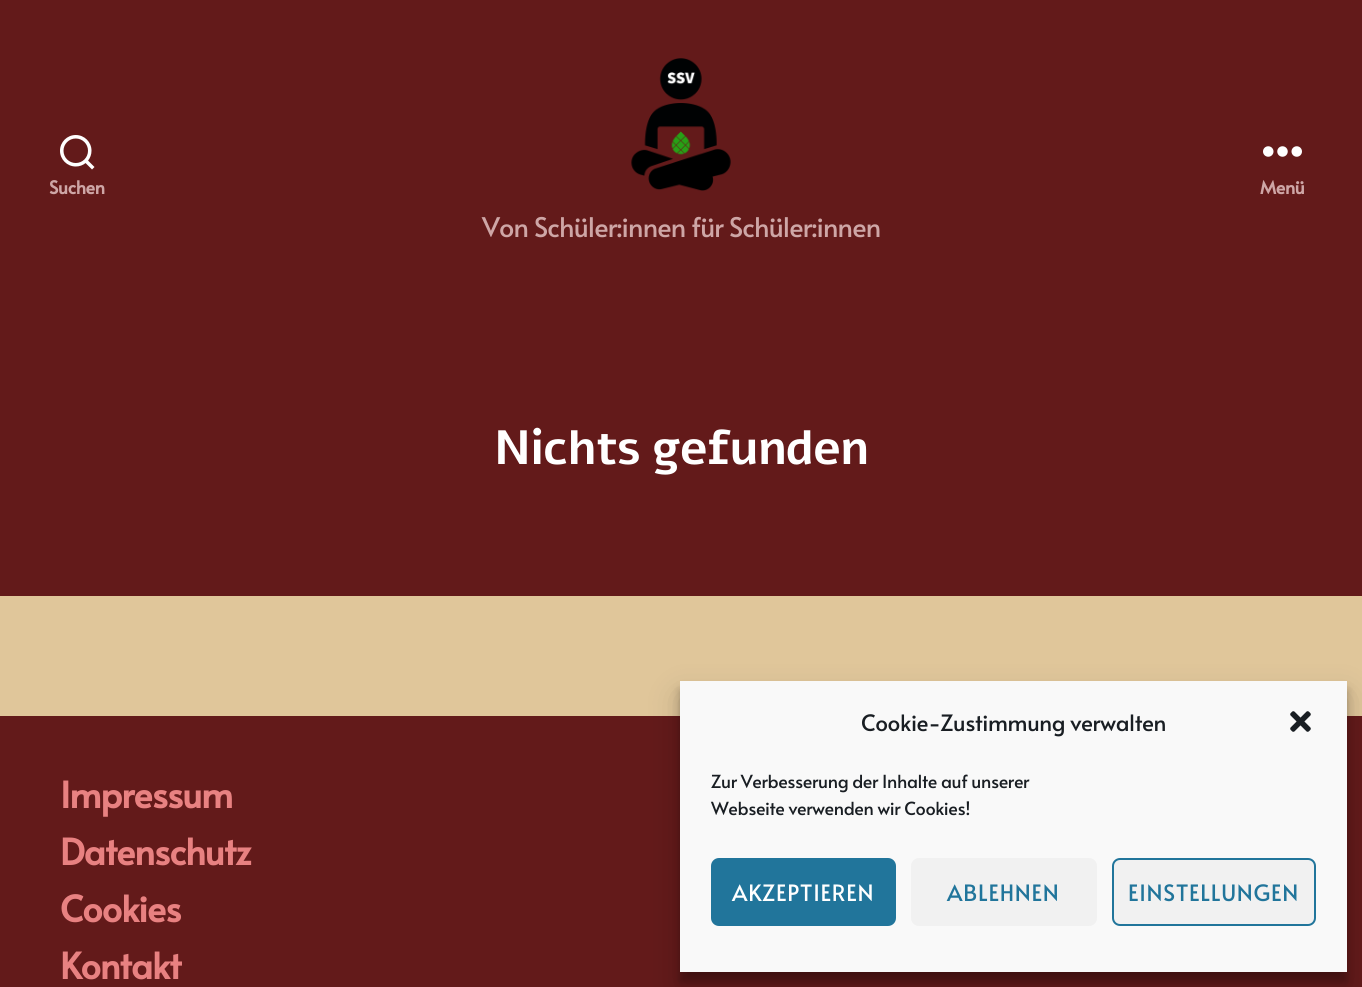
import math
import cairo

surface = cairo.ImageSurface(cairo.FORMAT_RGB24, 1362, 987)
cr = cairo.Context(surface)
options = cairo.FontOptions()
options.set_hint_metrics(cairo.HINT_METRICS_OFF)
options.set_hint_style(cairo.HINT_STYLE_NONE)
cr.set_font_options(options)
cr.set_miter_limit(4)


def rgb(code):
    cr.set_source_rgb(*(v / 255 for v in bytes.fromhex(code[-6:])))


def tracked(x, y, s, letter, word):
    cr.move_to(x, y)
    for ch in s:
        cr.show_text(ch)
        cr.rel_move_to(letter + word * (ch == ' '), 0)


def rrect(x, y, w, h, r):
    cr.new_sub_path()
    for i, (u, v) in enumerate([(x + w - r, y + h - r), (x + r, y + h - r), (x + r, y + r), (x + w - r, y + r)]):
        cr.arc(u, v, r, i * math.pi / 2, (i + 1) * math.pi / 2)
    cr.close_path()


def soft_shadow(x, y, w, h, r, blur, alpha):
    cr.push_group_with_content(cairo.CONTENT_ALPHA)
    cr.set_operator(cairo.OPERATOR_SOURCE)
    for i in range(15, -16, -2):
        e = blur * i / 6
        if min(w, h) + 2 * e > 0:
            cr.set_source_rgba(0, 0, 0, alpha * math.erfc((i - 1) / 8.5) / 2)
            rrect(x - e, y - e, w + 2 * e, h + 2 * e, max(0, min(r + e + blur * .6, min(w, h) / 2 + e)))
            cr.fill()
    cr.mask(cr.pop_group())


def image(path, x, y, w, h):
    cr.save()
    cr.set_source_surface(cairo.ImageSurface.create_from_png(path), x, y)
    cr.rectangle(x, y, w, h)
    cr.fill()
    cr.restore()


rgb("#e0c69a")
cr.paint()
rgb("#631a1a")
cr.rectangle(0, 0, 1362, 596)
cr.fill()
image("img/1.png", 60, 135, 35, 35)
image("img/2.png", 1263, 146, 39, 11)
image("img/3.png", 631, 58, 100, 133)
cr.rectangle(0, 716, 1362, 271)
cr.fill()
rgb("#000000")
soft_shadow(680, 690, 667, 291, 0, 4.5, 0.23)
soft_shadow(680, 696, 667, 291, 0, 15, 0.19)
rgb("#f9f9f9")
cr.rectangle(680, 681, 667, 291)
cr.fill()
image("img/4.png", 1290, 711, 21, 21)
rgb("#21759b")
rrect(712, 859, 183, 66, 7)
cr.fill_preserve()
cr.stroke()
rgb("#f1f1f1")
rrect(911, 858, 186, 68, 8)
cr.fill()
rrect(1113, 859, 202, 66, 7)
cr.fill_preserve()
rgb("#21759b")
cr.stroke()
cr.select_font_face("Alata", cairo.FONT_SLANT_NORMAL, cairo.FONT_WEIGHT_BOLD)
cr.set_font_size(18)
rgb("#cea6a6")
tracked(49, 194, "Suchen", -0.4, 0)
tracked(1260, 194, "Menü", -0.4, 0)
cr.select_font_face("Alata")
cr.set_font_size(27)
tracked(482, 237, "Von Schüler:innen für Schüler:innen", -0.85, 0)
cr.select_font_face("Alef", cairo.FONT_SLANT_NORMAL, cairo.FONT_WEIGHT_BOLD)
cr.set_font_size(48)
rgb("#ffffff")
tracked(494, 464, "Nichts gefunden", -1.25, 0)
cr.select_font_face("Alata", cairo.FONT_SLANT_NORMAL, cairo.FONT_WEIGHT_BOLD)
cr.set_font_size(36)
rgb("#e88181")
for x, y, s in [
    (60, 808, "Impressum"),
    (60, 865, "Datenschutz"),
    (60, 922, "Cookies"),
    (60, 979, "Kontakt"),
]:
    tracked(x, y, s, -1, 0)
cr.select_font_face("Alata")
cr.set_font_size(22.5)
rgb("#191e23")
tracked(861, 731, "Cookie-Zustimmung verwalten", -0.4, 0)
cr.set_font_size(18)
tracked(711, 788, "Zur Verbesserung der Inhalte auf unserer", -0.4, 0)
tracked(711, 815, "Webseite verwenden wir Cookies!", -0.4, 0)
cr.set_font_size(22.5)
rgb("#ffffff")
tracked(732, 901, "AKZEPTIEREN", 0.75, 0)
rgb("#21759b")
tracked(947, 901, "ABLEHNEN", 0.75, 0)
tracked(1128, 901, "EINSTELLUNGEN", 0.75, 0)
surface.write_to_png("page.png")
